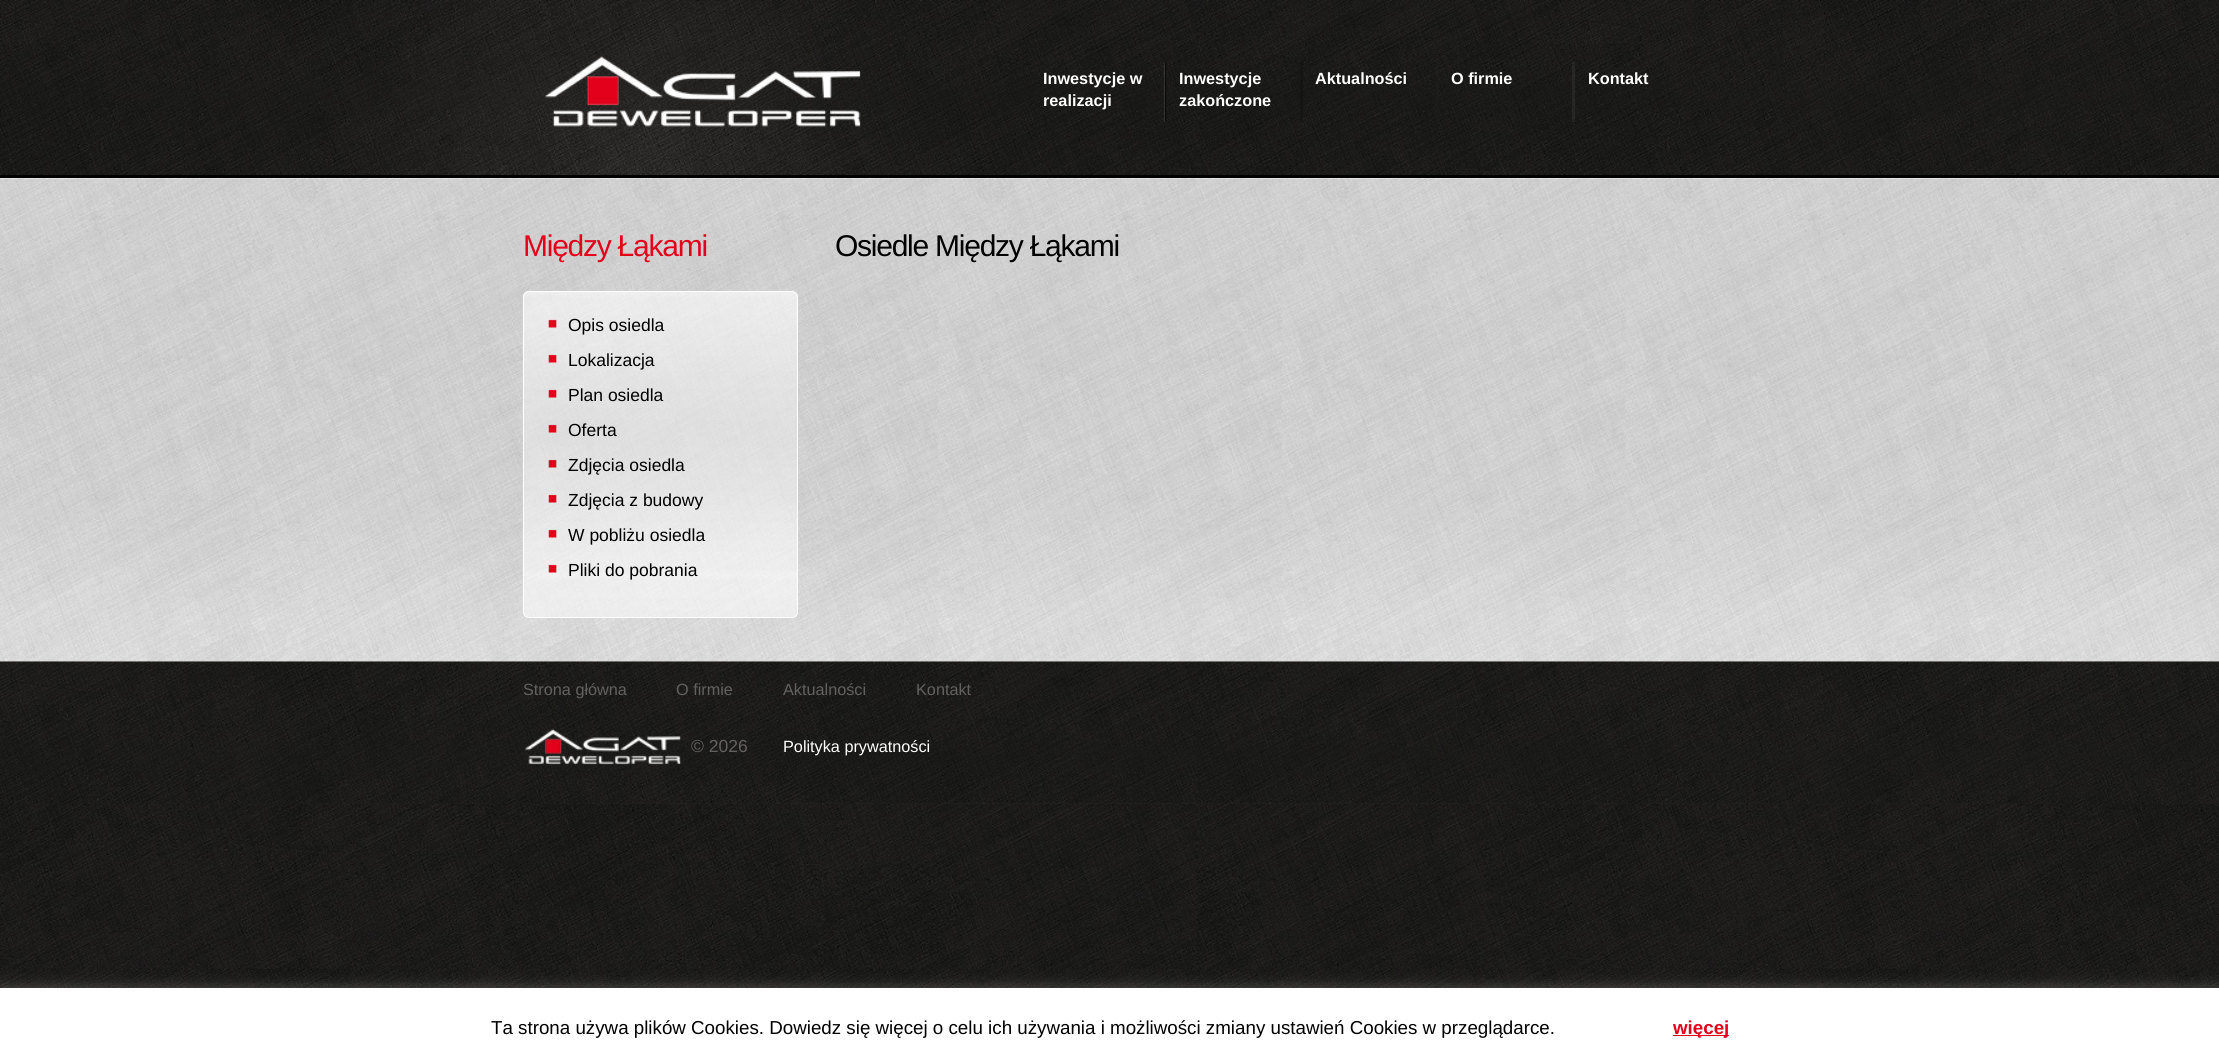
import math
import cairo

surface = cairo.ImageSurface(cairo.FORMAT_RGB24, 2219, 1062)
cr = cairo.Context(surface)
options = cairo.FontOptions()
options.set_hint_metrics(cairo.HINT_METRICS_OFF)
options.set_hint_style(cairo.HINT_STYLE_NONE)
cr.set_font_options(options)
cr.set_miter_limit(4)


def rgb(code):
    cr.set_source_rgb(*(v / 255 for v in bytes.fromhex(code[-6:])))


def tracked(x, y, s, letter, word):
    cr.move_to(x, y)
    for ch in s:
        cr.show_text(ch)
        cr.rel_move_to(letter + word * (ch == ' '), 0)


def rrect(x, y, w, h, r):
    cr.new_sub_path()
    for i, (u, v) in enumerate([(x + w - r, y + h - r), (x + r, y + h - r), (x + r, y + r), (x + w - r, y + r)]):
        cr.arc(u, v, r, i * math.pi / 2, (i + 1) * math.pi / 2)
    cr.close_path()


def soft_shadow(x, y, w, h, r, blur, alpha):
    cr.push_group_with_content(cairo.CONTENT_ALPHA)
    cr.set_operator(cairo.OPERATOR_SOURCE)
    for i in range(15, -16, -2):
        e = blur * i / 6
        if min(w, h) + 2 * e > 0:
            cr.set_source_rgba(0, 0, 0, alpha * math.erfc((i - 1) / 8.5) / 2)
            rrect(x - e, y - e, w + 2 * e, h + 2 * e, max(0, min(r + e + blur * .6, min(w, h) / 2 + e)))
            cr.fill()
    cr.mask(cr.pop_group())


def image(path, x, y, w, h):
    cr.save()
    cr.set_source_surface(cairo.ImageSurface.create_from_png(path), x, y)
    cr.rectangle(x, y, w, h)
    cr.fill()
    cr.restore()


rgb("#ffffff")
cr.paint()
image("img/1.png", 0, 803, 2219, 185)
image("img/2.png", 0, 0, 2219, 804)
rgb("#000000")
cr.rectangle(0, 175, 2219, 3)
cr.fill()
image("img/3.png", 545, 56, 316, 71)
image("img/4.png", 1163, 62, 4, 60)
cr.set_source_rgba(0.063, 0.063, 0.063, 0.51)
cr.rectangle(1300, 62, 3, 60)
cr.fill()
cr.set_source_rgba(0.125, 0.125, 0.125, 0.4)
cr.rectangle(1436, 62, 3, 60)
cr.fill()
cr.set_source_rgba(0.306, 0.306, 0.306, 0.25)
cr.rectangle(1572, 62, 3, 60)
cr.fill()
image("img/17.png", 0, 661, 2219, 143)
image("img/5.png", 0, 178, 2219, 484)
image("img/6.png", 0, 178, 2219, 484)
image("img/7.png", 0, 178, 2219, 1)
image("img/8.png", 522, 291, 276, 326)
rrect(523.5, 291.5, 274, 326, 5.5)
rgb("#ffffff")
cr.set_line_width(1)
cr.stroke()
image("img/9.png", 548, 319, 9, 9)
image("img/10.png", 548, 354, 9, 9)
image("img/11.png", 548, 389, 9, 9)
image("img/12.png", 548, 424, 9, 9)
image("img/13.png", 548, 459, 9, 9)
image("img/14.png", 548, 494, 9, 9)
image("img/15.png", 548, 529, 9, 9)
image("img/16.png", 548, 564, 9, 9)
image("img/18.png", 525, 728, 157, 37)
rgb("#acabab")
soft_shadow(0, 986, 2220, 75, 0, 6, 0.3)
rgb("#ffffff")
cr.rectangle(0, 988, 2219, 74)
cr.fill()
rgb("#e2001a")
cr.rectangle(1673, 1035, 56, 1)
cr.fill()
cr.select_font_face("Liberation Sans", cairo.FONT_SLANT_NORMAL, cairo.FONT_WEIGHT_BOLD)
cr.set_font_size(16.25)
rgb("#ffffff")
for x, y, s in [
    (1043, 84, "Inwestycje w"),
    (1043, 106, "realizacji"),
    (1179, 84, "Inwestycje"),
    (1179, 106, "zakończone"),
    (1315, 84, "Aktualności"),
    (1451, 84, "O firmie"),
    (1588, 84, "Kontakt"),
]:
    cr.move_to(x, y)
    cr.show_text(s)
cr.select_font_face("Liberation Sans")
cr.set_font_size(30)
rgb("#e2001a")
tracked(523, 256, "Między Łąkami", -1.25, 0)
cr.set_font_size(17.5)
rgb("#000000")
for x, y, s in [
    (568, 331, "Opis osiedla"),
    (568, 366, "Lokalizacja"),
    (568, 401, "Plan osiedla"),
    (568, 436, "Oferta"),
    (568, 471, "Zdjęcia osiedla"),
    (568, 506, "Zdjęcia z budowy"),
    (568, 541, "W pobliżu osiedla"),
    (568, 576, "Pliki do pobrania"),
]:
    cr.move_to(x, y)
    cr.show_text(s)
cr.set_font_size(30)
tracked(835, 256, "Osiedle Między Łąkami", -1.25, 0)
cr.set_font_size(16.25)
rgb("#636160")
for x, y, s in [
    (523, 695, "Strona główna"),
    (676, 695, "O firmie"),
    (783, 695, "Aktualności"),
    (916, 695, "Kontakt"),
]:
    cr.move_to(x, y)
    cr.show_text(s)
cr.set_font_size(17.5)
cr.move_to(691, 752)
cr.show_text("© 2026")
cr.set_font_size(16.25)
rgb("#ffffff")
cr.move_to(783, 752)
cr.show_text("Polityka prywatności")
cr.set_font_size(18.75)
rgb("#000000")
cr.move_to(491, 1034)
cr.show_text("Ta strona używa plików Cookies. Dowiedz się więcej o celu ich używania i możliwości zmiany ustawień Cookies w przeglądarce.")
cr.select_font_face("Liberation Sans", cairo.FONT_SLANT_NORMAL, cairo.FONT_WEIGHT_BOLD)
rgb("#e2001a")
cr.move_to(1673, 1034)
cr.show_text("więcej")
surface.write_to_png("page.png")
